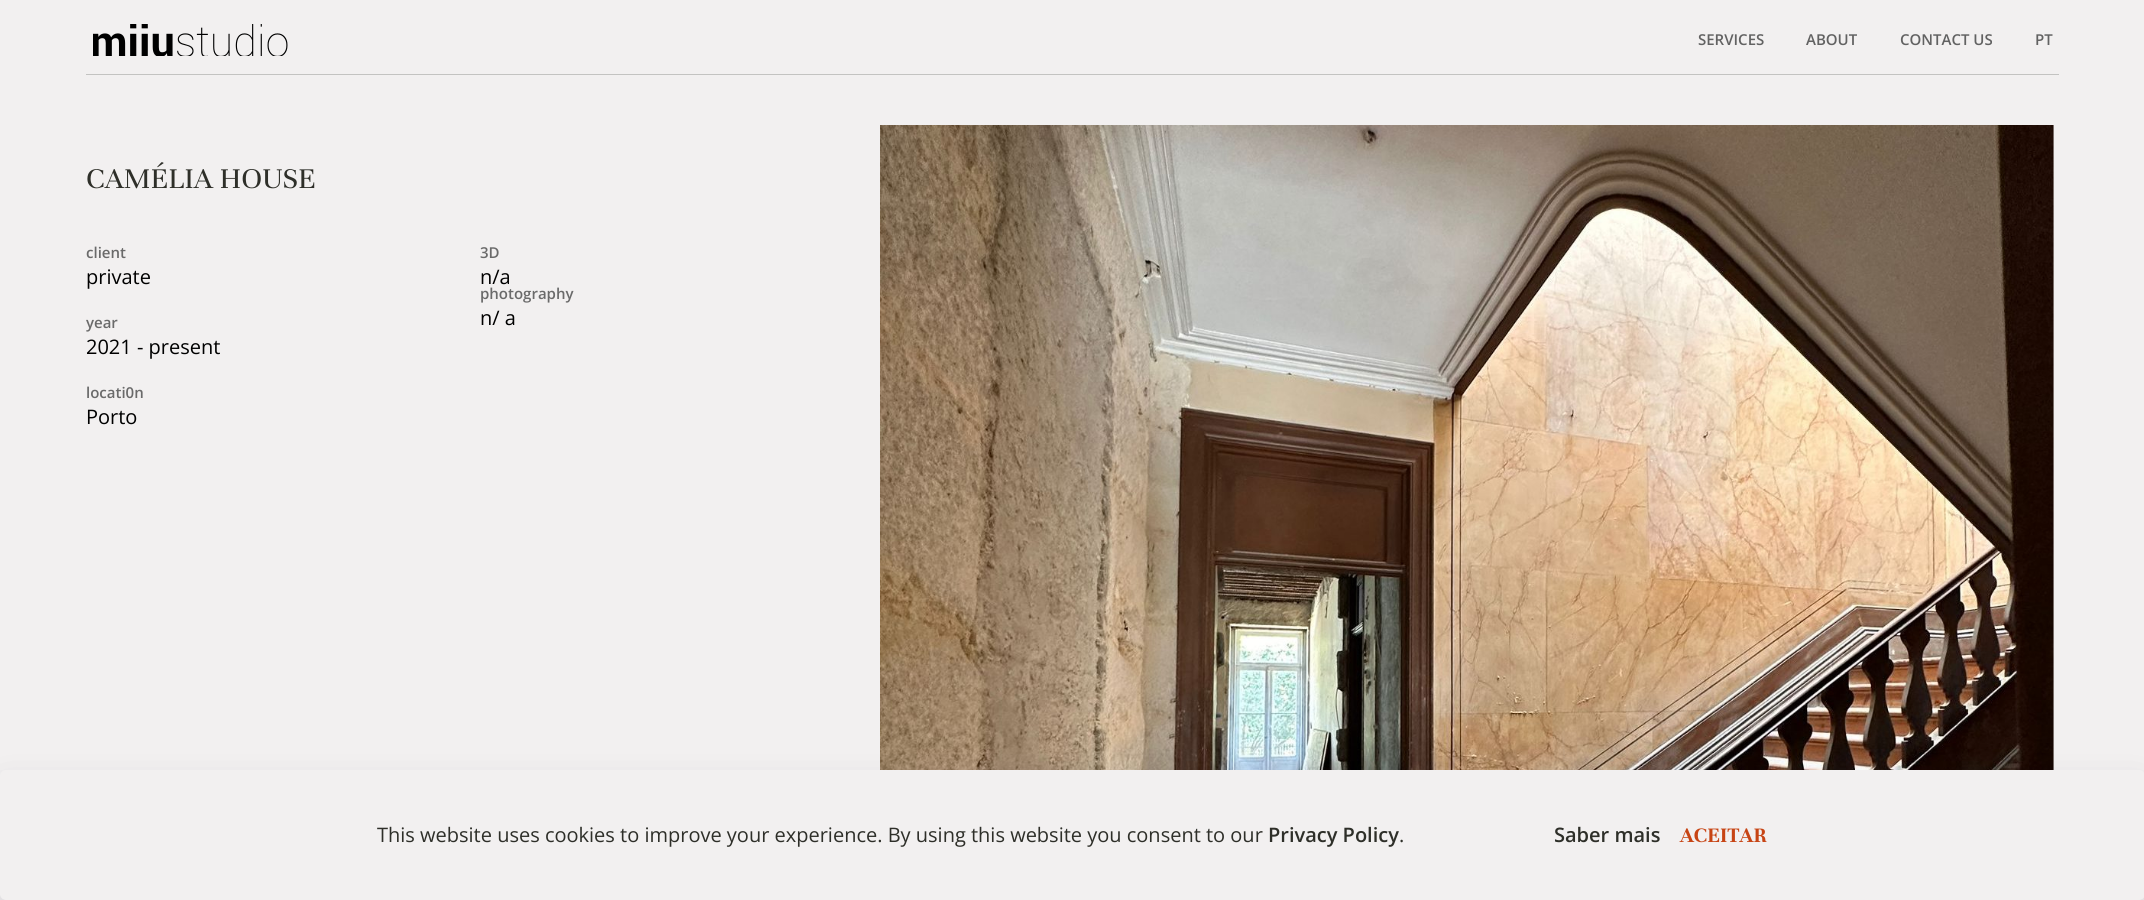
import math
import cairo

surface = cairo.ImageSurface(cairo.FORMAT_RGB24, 2144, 900)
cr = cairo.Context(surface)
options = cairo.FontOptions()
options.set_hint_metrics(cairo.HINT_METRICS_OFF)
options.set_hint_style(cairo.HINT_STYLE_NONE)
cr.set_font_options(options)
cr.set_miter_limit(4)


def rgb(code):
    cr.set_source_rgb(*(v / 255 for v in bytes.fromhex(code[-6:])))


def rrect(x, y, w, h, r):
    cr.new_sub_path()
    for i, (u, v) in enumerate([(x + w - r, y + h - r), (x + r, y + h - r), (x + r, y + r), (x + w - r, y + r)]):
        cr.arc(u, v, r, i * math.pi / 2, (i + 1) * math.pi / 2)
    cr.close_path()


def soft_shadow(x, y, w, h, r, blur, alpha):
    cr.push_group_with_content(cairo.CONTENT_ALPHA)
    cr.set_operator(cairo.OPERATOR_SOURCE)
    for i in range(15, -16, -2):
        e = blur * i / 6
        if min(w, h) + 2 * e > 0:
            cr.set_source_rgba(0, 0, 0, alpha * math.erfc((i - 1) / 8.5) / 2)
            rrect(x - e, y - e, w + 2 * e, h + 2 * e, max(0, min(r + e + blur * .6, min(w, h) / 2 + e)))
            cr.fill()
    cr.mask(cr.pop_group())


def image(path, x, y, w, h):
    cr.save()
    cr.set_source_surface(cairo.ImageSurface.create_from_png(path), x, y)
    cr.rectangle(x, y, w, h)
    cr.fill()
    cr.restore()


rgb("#f2f0f0")
cr.paint()
rgb("#c3c3c1")
cr.rectangle(86, 74, 1973, 1)
cr.fill()
image("img/1.png", 93, 24, 195, 32)
image("img/2.png", 880, 125, 1174, 645)
rgb("#010727")
soft_shadow(0, 789, 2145, 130, 6, 19, 0.13)
rgb("#f2f0f0")
rrect(0, 770, 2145, 130, 6)
cr.fill()
cr.select_font_face("Open Sans SemiBold")
cr.set_font_size(15)
rgb("#626262")
for x, y, s in [
    (1698, 45, "SERVICES"),
    (1806, 45, "ABOUT"),
    (1900, 45, "CONTACT US"),
    (2035, 45, "PT"),
]:
    cr.move_to(x, y)
    cr.show_text(s)
cr.select_font_face("Unna")
cr.set_font_size(31.25)
rgb("#2e2f29")
cr.move_to(86, 188)
cr.show_text("CAMÉLIA HOUSE")
cr.select_font_face("Open Sans SemiBold")
cr.set_font_size(15)
rgb("#6a6a6a")
cr.move_to(86, 258)
cr.show_text("client")
cr.select_font_face("Open Sans")
cr.set_font_size(20)
rgb("#000000")
cr.move_to(86, 284)
cr.show_text("private")
cr.select_font_face("Open Sans SemiBold")
cr.set_font_size(15)
rgb("#6a6a6a")
cr.move_to(86, 328)
cr.show_text("year")
cr.select_font_face("Open Sans")
cr.set_font_size(20)
rgb("#000000")
cr.move_to(86, 354)
cr.show_text("2021 - present")
cr.select_font_face("Open Sans SemiBold")
cr.set_font_size(15)
rgb("#6a6a6a")
cr.move_to(86, 398)
cr.show_text("locati0n")
cr.select_font_face("Open Sans")
cr.set_font_size(20)
rgb("#000000")
cr.move_to(86, 424)
cr.show_text("Porto")
cr.select_font_face("Open Sans SemiBold")
cr.set_font_size(15)
rgb("#6a6a6a")
cr.move_to(480, 258)
cr.show_text("3D")
cr.select_font_face("Open Sans")
cr.set_font_size(20)
rgb("#000000")
cr.move_to(480, 284)
cr.show_text("n/a")
cr.select_font_face("Open Sans SemiBold")
cr.set_font_size(15)
rgb("#6a6a6a")
cr.move_to(480, 299)
cr.show_text("photography")
cr.select_font_face("Open Sans")
cr.set_font_size(20)
rgb("#000000")
cr.move_to(480, 325)
cr.show_text("n/ a")
rgb("#2e2f29")
cr.move_to(377, 842)
cr.show_text("This website uses cookies to improve your experience. By using this website you consent to our")
cr.select_font_face("Open Sans SemiBold")
cr.move_to(1268, 842)
cr.show_text("Privacy Policy")
cr.select_font_face("Open Sans")
cr.move_to(1399, 842)
cr.show_text(".")
cr.select_font_face("Open Sans SemiBold")
cr.move_to(1554, 842)
cr.show_text("Saber mais")
cr.select_font_face("Unna", cairo.FONT_SLANT_NORMAL, cairo.FONT_WEIGHT_BOLD)
cr.set_font_size(22.5)
rgb("#c74414")
cr.move_to(1680, 842)
cr.show_text("ACEITAR")
surface.write_to_png("page.png")
